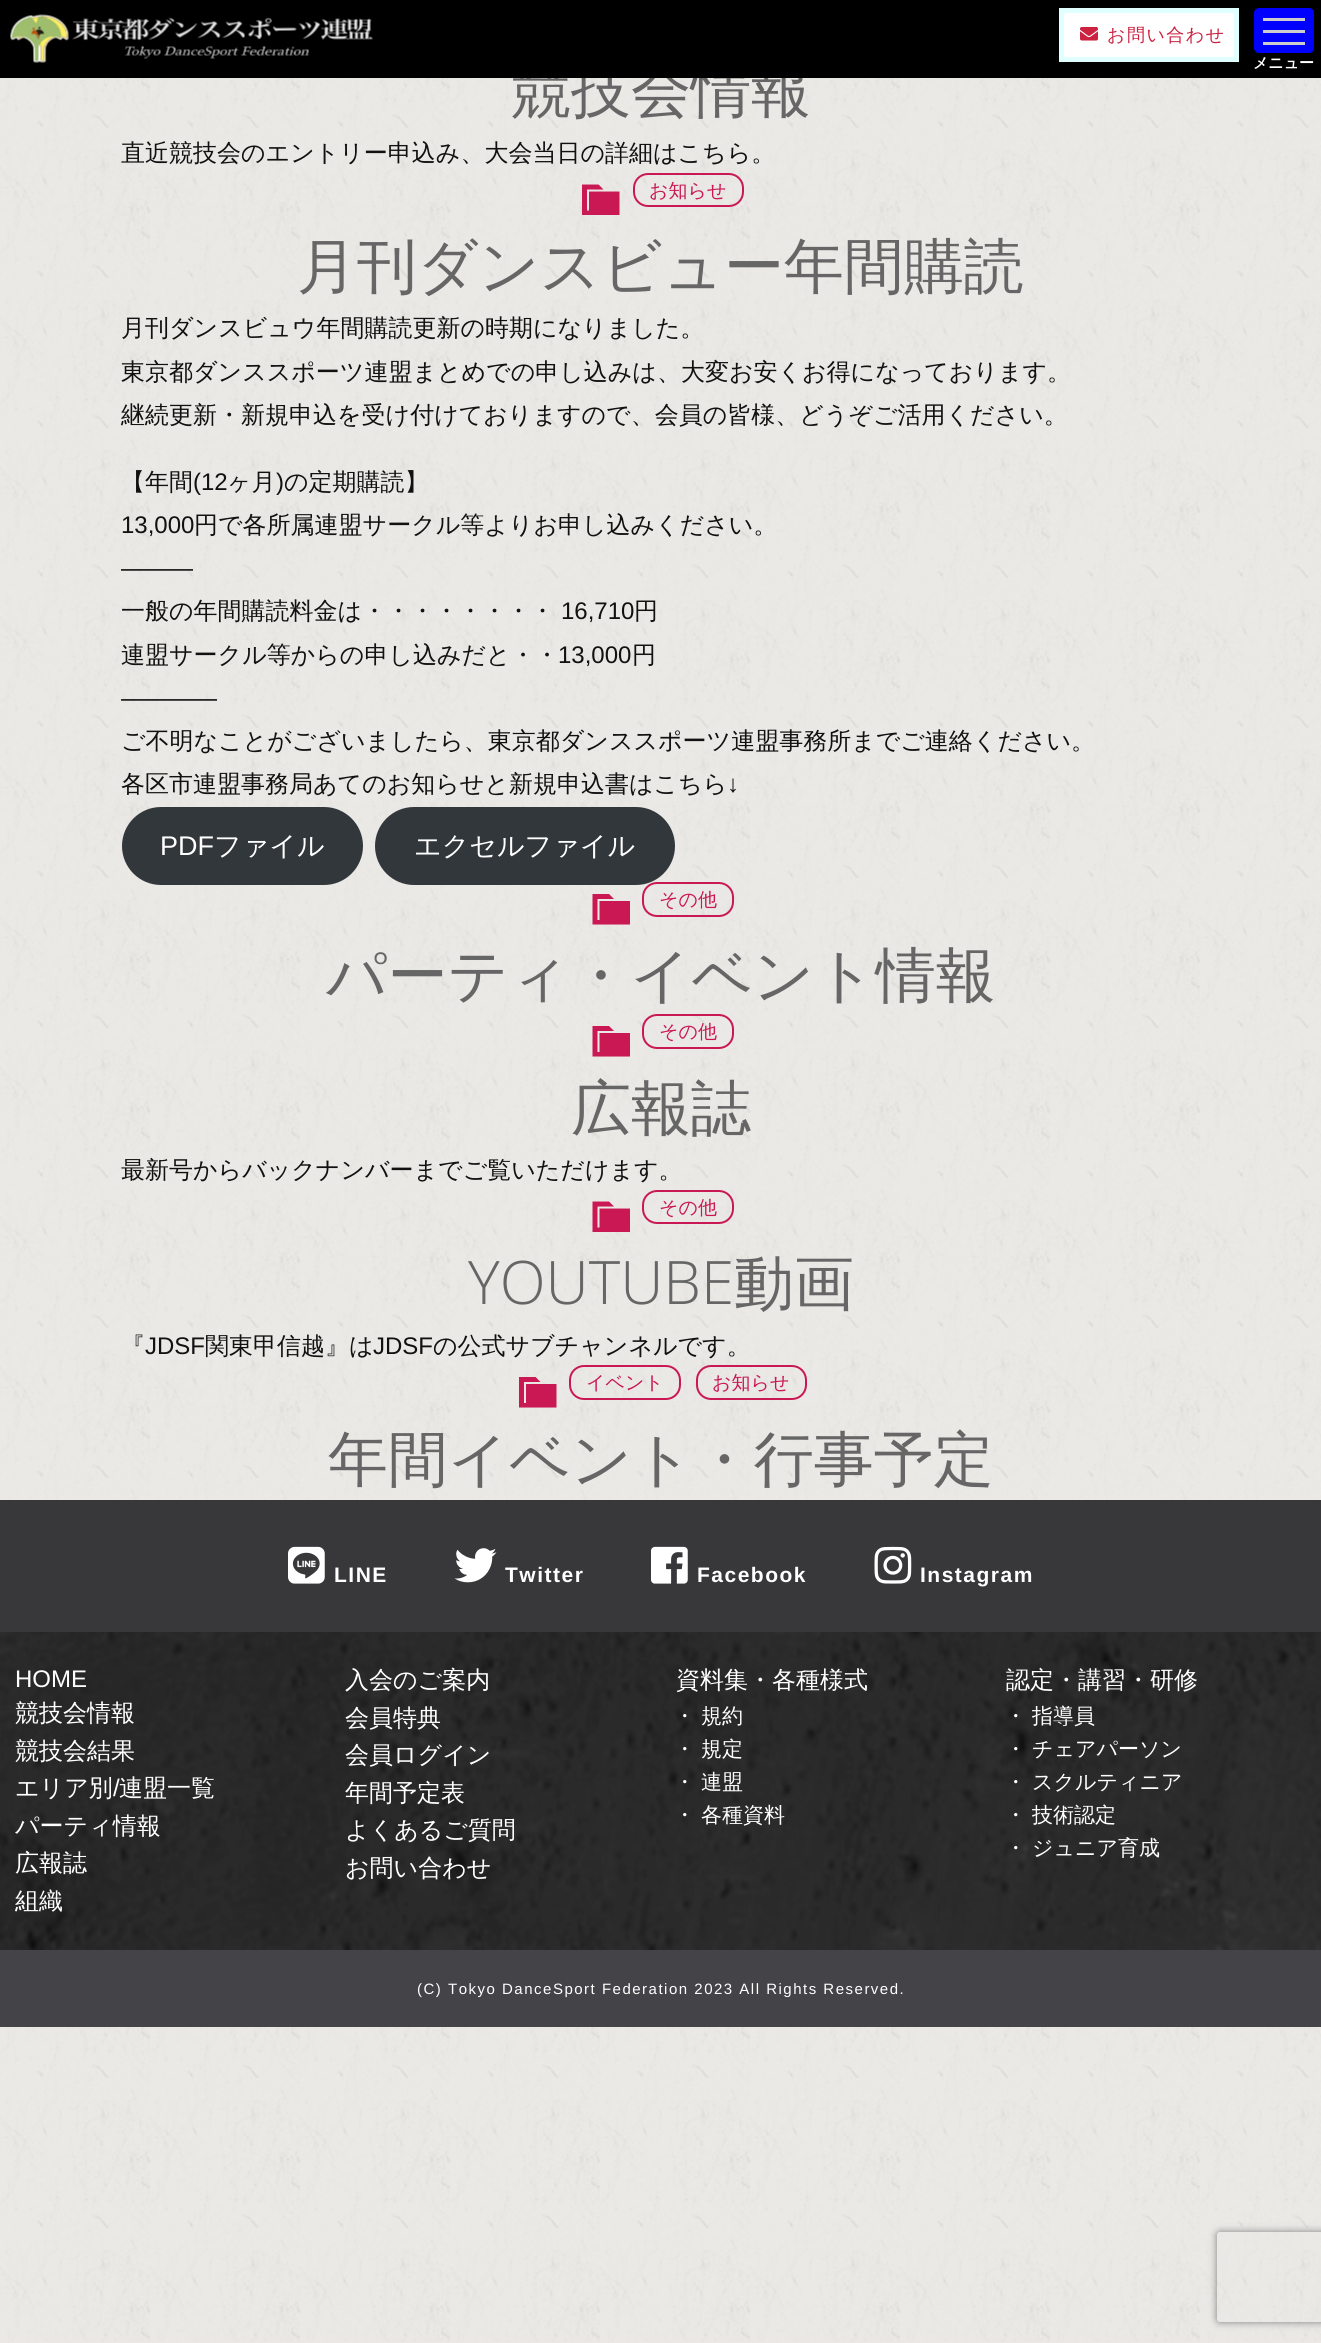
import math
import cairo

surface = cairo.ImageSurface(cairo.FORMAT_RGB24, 1321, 2343)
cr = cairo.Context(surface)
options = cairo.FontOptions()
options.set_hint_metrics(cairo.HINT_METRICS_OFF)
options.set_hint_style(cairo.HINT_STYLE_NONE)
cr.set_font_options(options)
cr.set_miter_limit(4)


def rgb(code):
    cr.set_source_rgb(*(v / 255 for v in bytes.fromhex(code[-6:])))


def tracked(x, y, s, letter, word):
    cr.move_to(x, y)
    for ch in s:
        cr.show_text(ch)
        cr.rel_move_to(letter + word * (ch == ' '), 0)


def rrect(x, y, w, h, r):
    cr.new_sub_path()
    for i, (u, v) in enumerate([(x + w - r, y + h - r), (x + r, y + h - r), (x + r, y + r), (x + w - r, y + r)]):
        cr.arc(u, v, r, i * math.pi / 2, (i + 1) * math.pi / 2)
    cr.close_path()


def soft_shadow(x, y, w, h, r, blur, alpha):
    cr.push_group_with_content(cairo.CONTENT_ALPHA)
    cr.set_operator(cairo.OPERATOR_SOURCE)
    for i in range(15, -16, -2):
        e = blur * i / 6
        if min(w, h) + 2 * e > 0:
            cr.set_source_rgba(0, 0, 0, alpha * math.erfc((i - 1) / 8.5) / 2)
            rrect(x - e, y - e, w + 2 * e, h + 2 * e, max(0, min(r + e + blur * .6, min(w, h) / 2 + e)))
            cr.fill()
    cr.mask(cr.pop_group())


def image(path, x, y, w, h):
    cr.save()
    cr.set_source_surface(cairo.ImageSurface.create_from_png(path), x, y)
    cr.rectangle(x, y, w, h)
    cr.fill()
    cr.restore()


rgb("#ebe8e6")
cr.paint()
image("img/1.png", 0, 78, 1321, 2264)
rgb("#c91853")
cr.new_path()
cr.move_to(589, 191.5)
cr.line_to(619.5, 191.5)
cr.line_to(619.5, 215)
cr.line_to(582, 215)
cr.line_to(582, 184.5)
cr.line_to(598.5, 184.5)
cr.line_to(603.5, 189.5)
cr.line_to(587, 189.5)
cr.line_to(587, 210.5)
cr.line_to(589, 210.5)
cr.close_path()
cr.fill()
rrect(634, 174, 109, 32, 14)
cr.stroke()
rgb("#32373c")
rrect(122, 807, 241, 78, 39)
cr.fill()
rrect(375, 807, 300, 78, 39)
cr.fill()
rgb("#c91853")
cr.new_path()
cr.move_to(599.5, 901)
cr.line_to(630, 901)
cr.line_to(630, 924.5)
cr.line_to(592.5, 924.5)
cr.line_to(592.5, 894)
cr.line_to(609, 894)
cr.line_to(614, 899)
cr.line_to(597.5, 899)
cr.line_to(597.5, 920)
cr.line_to(599.5, 920)
cr.close_path()
cr.fill()
rrect(643, 883, 90, 33, 14)
cr.stroke()
cr.new_path()
cr.move_to(599.5, 1033)
cr.line_to(630, 1033)
cr.line_to(630, 1056.5)
cr.line_to(592.5, 1056.5)
cr.line_to(592.5, 1026)
cr.line_to(609, 1026)
cr.line_to(614, 1031)
cr.line_to(597.5, 1031)
cr.line_to(597.5, 1052)
cr.line_to(599.5, 1052)
cr.close_path()
cr.fill()
rrect(643, 1015, 90, 33, 14)
cr.stroke()
cr.new_path()
cr.move_to(599.5, 1208.5)
cr.line_to(630, 1208.5)
cr.line_to(630, 1232)
cr.line_to(592.5, 1232)
cr.line_to(592.5, 1201.5)
cr.line_to(609, 1201.5)
cr.line_to(614, 1206.5)
cr.line_to(597.5, 1206.5)
cr.line_to(597.5, 1227.5)
cr.line_to(599.5, 1227.5)
cr.close_path()
cr.fill()
rrect(643, 1191, 90, 32, 14)
cr.stroke()
cr.new_path()
cr.move_to(526, 1384)
cr.line_to(556.5, 1384)
cr.line_to(556.5, 1407.5)
cr.line_to(519, 1407.5)
cr.line_to(519, 1377)
cr.line_to(535.5, 1377)
cr.line_to(540.5, 1382)
cr.line_to(524, 1382)
cr.line_to(524, 1403)
cr.line_to(526, 1403)
cr.close_path()
cr.fill()
rrect(570, 1366, 110, 33, 14)
cr.stroke()
rrect(697, 1366, 109, 33, 14)
cr.stroke()
image("img/4.png", 0, 1632, 1321, 318)
rgb("#38373a")
cr.rectangle(0, 1500, 1321, 132)
cr.fill()
image("img/5.png", 288, 1546, 37, 38)
image("img/6.png", 454, 1548, 43, 35)
image("img/7.png", 651, 1546, 37, 38)
image("img/8.png", 874, 1546, 38, 38)
rgb("#444448")
cr.rectangle(0, 1950, 1321, 77)
cr.fill()
cr.save()
cr.set_fill_rule(cairo.FILL_RULE_EVEN_ODD)
cr.new_path()
cr.move_to(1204, 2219)
cr.line_to(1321, 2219)
cr.line_to(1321, 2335)
cr.line_to(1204, 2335)
cr.close_path()
cr.move_to(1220, 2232)
cr.line_to(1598, 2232)
cr.curve_to(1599.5, 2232, 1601, 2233.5, 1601, 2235)
cr.line_to(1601, 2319)
cr.curve_to(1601, 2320.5, 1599.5, 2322, 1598, 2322)
cr.line_to(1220, 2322)
cr.curve_to(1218.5, 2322, 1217, 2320.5, 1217, 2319)
cr.line_to(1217, 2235)
cr.curve_to(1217, 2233.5, 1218.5, 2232, 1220, 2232)
cr.close_path()
cr.clip()
rgb("#808080")
soft_shadow(1217, 2232, 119, 90, 3, 4, 1)
cr.restore()
cr.select_font_face("WenQuanYi Zen Hei Medium")
cr.set_font_size(60)
rgb("#666666")
cr.move_to(511, 111)
cr.show_text("競技会情報")
rgb("#000000")
cr.rectangle(0, 0, 1321, 78)
cr.fill()
rgb("#0000ff")
rrect(1254, 8, 60, 45, 5)
cr.fill()
for x, y, w, h, color in [
    (1263, 42, 42, 3, "#cccccc"),
    (1263, 30, 42, 3, "#cccccc"),
    (1263, 18, 42, 3, "#cccccc"),
]:
    rgb(color)
    cr.rectangle(x, y, w, h)
    cr.fill()
cr.select_font_face("WenQuanYi Zen Hei", cairo.FONT_SLANT_NORMAL, cairo.FONT_WEIGHT_BOLD)
cr.set_font_size(15)
rgb("#ffffff")
cr.move_to(1253, 68)
cr.show_text("メニュー")
cr.rectangle(1061.5, 10.5, 175, 49)
cr.fill_preserve()
rgb("#e0ffff")
cr.set_line_width(5)
cr.stroke()
cr.select_font_face("WenQuanYi Zen Hei Medium")
cr.set_font_size(18)
rgb("#cc2240")
tracked(1107, 41, "お問い合わせ", 1.5, 0)
image("img/3.png", 1080, 27, 18, 14)
image("img/2.png", 10, 14, 363, 49)
cr.set_font_size(24)
rgb("#111111")
cr.move_to(121, 161)
cr.show_text("直近競技会のエントリー申込み、大会当日の詳細はこちら。")
cr.set_font_size(19)
rgb("#c91853")
cr.move_to(649, 197)
cr.show_text("お知らせ")
cr.set_font_size(60)
rgb("#666666")
cr.move_to(297, 287)
cr.show_text("月刊ダンスビュー年間購読")
cr.set_font_size(24)
rgb("#111111")
for x, y, s in [
    (121, 336, "月刊ダンスビュウ年間購読更新の時期になりました。"),
    (121, 380, "東京都ダンススポーツ連盟まとめでの申し込みは、大変お安くお得になっております。"),
    (121, 423, "継続更新・新規申込を受け付けておりますので、会員の皆様、どうぞご活用ください。"),
    (121, 490, "【年間"),
]:
    cr.move_to(x, y)
    cr.show_text(s)
cr.select_font_face("Liberation Sans")
cr.move_to(193, 490)
cr.show_text("(12")
cr.select_font_face("WenQuanYi Zen Hei Medium")
cr.move_to(227, 490)
cr.show_text("ヶ月")
cr.select_font_face("Liberation Sans")
cr.move_to(276, 490)
cr.show_text(")")
cr.select_font_face("WenQuanYi Zen Hei Medium")
cr.move_to(284, 490)
cr.show_text("の定期購読】")
cr.select_font_face("Liberation Sans")
cr.move_to(121, 533)
cr.show_text("13,000")
cr.select_font_face("WenQuanYi Zen Hei Medium")
cr.move_to(194, 533)
cr.show_text("円で各所属連盟サークル等よりお申し込みください。")
cr.select_font_face("Liberation Sans")
cr.move_to(121, 576)
cr.show_text("———")
cr.select_font_face("WenQuanYi Zen Hei Medium")
cr.move_to(121, 619)
cr.show_text("一般の年間購読料金は・・・・・・・・")
cr.select_font_face("Liberation Sans")
cr.move_to(561, 619)
cr.show_text("16,710")
cr.select_font_face("WenQuanYi Zen Hei Medium")
cr.move_to(634, 619)
cr.show_text("円")
cr.move_to(121, 663)
cr.show_text("連盟サークル等からの申し込みだと・・")
cr.select_font_face("Liberation Sans")
cr.move_to(558, 663)
cr.show_text("13,000")
cr.select_font_face("WenQuanYi Zen Hei Medium")
cr.move_to(632, 663)
cr.show_text("円")
cr.select_font_face("Liberation Sans")
cr.move_to(121, 706)
cr.show_text("————")
cr.select_font_face("WenQuanYi Zen Hei Medium")
cr.move_to(121, 749)
cr.show_text("ご不明なことがございましたら、東京都ダンススポーツ連盟事務所までご連絡ください。")
cr.move_to(121, 792)
cr.show_text("各区市連盟事務局あてのお知らせと新規申込書はこちら")
cr.select_font_face("Liberation Sans")
cr.move_to(727, 792)
cr.show_text("↓")
cr.set_font_size(27)
rgb("#ffffff")
cr.move_to(160, 855)
cr.show_text("PDF")
cr.select_font_face("WenQuanYi Zen Hei Medium")
cr.move_to(214, 855)
cr.show_text("ファイル")
cr.move_to(414, 855)
cr.show_text("エクセルファイル")
cr.set_font_size(19)
rgb("#c91853")
cr.move_to(659, 906)
cr.show_text("その他")
cr.set_font_size(60)
rgb("#666666")
cr.move_to(326, 996)
cr.show_text("パーティ・イベント情報")
cr.set_font_size(19)
rgb("#c91853")
cr.move_to(659, 1038)
cr.show_text("その他")
cr.set_font_size(60)
rgb("#666666")
cr.move_to(571, 1129)
cr.show_text("広報誌")
cr.set_font_size(24)
rgb("#111111")
cr.move_to(121, 1178)
cr.show_text("最新号からバックナンバーまでご覧いただけます。")
cr.set_font_size(19)
rgb("#c91853")
cr.move_to(659, 1214)
cr.show_text("その他")
cr.select_font_face("Open Sans Light")
cr.set_font_size(60)
rgb("#666666")
cr.move_to(468, 1304)
cr.show_text("YOUTUBE")
cr.select_font_face("WenQuanYi Zen Hei Medium")
cr.move_to(734, 1304)
cr.show_text("動画")
cr.set_font_size(24)
rgb("#111111")
cr.move_to(121, 1354)
cr.show_text("『")
cr.select_font_face("Liberation Sans")
cr.move_to(145, 1354)
cr.show_text("JDSF")
cr.select_font_face("WenQuanYi Zen Hei Medium")
cr.move_to(205, 1354)
cr.show_text("関東甲信越』は")
cr.select_font_face("Liberation Sans")
cr.move_to(373, 1354)
cr.show_text("JDSF")
cr.select_font_face("WenQuanYi Zen Hei Medium")
cr.move_to(433, 1354)
cr.show_text("の公式サブチャンネルです。")
cr.set_font_size(19)
rgb("#c91853")
cr.move_to(586, 1389)
cr.show_text("イベント")
cr.move_to(712, 1389)
cr.show_text("お知らせ")
cr.set_font_size(60)
rgb("#666666")
cr.move_to(328, 1480)
cr.show_text("年間イベント・行事予定")
cr.select_font_face("Liberation Sans", cairo.FONT_SLANT_NORMAL, cairo.FONT_WEIGHT_BOLD)
cr.set_font_size(21)
rgb("#ffffff")
for x, y, s in [
    (334, 1582, "LINE"),
    (505, 1582, "Twitter"),
    (697, 1582, "Facebook"),
    (920, 1582, "Instagram"),
]:
    tracked(x, y, s, 1.5, 0)
cr.select_font_face("Liberation Sans")
cr.set_font_size(24)
cr.move_to(15, 1687)
cr.show_text("HOME")
cr.select_font_face("WenQuanYi Zen Hei Medium")
for x, y, s in [
    (15, 1721, "競技会情報"),
    (15, 1759, "競技会結果"),
    (15, 1796, "エリア別"),
]:
    cr.move_to(x, y)
    cr.show_text(s)
cr.select_font_face("Liberation Sans")
cr.move_to(113, 1796)
cr.show_text("/")
cr.select_font_face("WenQuanYi Zen Hei Medium")
for x, y, s in [
    (119, 1796, "連盟一覧"),
    (15, 1834, "パーティ情報"),
    (15, 1871, "広報誌"),
    (15, 1909, "組織"),
    (345, 1688, "入会のご案内"),
    (345, 1726, "会員特典"),
    (345, 1763, "会員ログイン"),
    (345, 1801, "年間予定表"),
    (345, 1838, "よくあるご質問"),
    (345, 1876, "お問い合わせ"),
    (676, 1688, "資料集・各種様式"),
]:
    cr.move_to(x, y)
    cr.show_text(s)
cr.set_font_size(21)
for x, y, s in [
    (674, 1723, "・"),
    (701, 1723, "規約"),
    (674, 1756, "・"),
    (701, 1756, "規定"),
    (674, 1789, "・"),
    (701, 1789, "連盟"),
    (674, 1822, "・"),
    (701, 1822, "各種資料"),
]:
    cr.move_to(x, y)
    cr.show_text(s)
cr.set_font_size(24)
cr.move_to(1006, 1688)
cr.show_text("認定・講習・研修")
cr.set_font_size(21)
for x, y, s in [
    (1005, 1723, "・"),
    (1032, 1723, "指導員"),
    (1005, 1756, "・"),
    (1032, 1756, "チェアパーソン"),
    (1005, 1789, "・"),
    (1032, 1789, "スクルティニア"),
    (1005, 1822, "・"),
    (1032, 1822, "技術認定"),
    (1005, 1855, "・"),
    (1032, 1855, "ジュニア育成"),
]:
    cr.move_to(x, y)
    cr.show_text(s)
cr.select_font_face("Liberation Sans")
cr.set_font_size(15)
tracked(417, 1994, "(C) Tokyo DanceSport Federation 2023 All Rights Reserved.", 1.5, 0)
surface.write_to_png("page.png")
